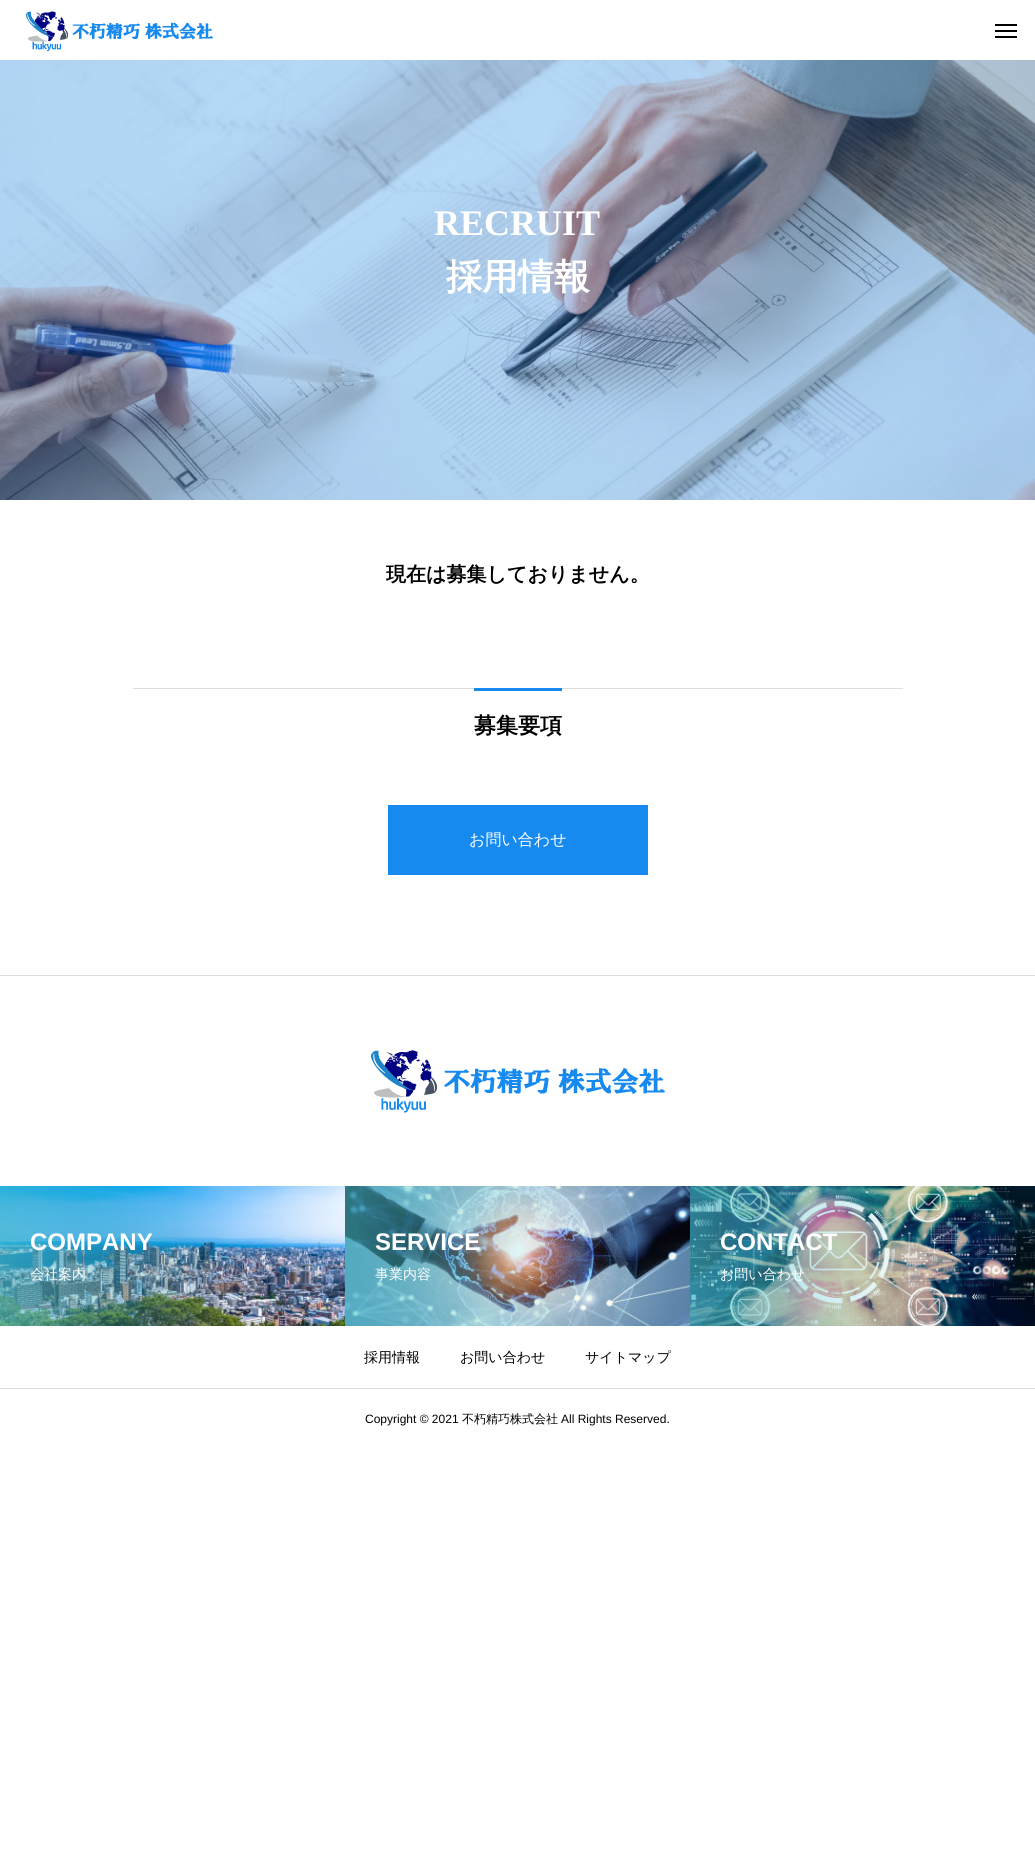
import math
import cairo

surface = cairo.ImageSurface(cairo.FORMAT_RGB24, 1035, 1873)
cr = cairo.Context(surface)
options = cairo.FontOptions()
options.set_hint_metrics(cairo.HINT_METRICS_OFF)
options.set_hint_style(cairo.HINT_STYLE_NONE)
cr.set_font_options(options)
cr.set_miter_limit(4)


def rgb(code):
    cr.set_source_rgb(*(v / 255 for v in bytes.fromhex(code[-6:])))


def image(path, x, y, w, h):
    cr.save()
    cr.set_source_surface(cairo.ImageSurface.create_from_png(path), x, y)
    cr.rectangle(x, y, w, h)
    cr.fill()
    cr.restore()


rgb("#ffffff")
cr.paint()
image("img/1.png", 26, 11, 187, 40)
for x, y, w, h, color in [
    (995, 24, 22, 2, "#000000"),
    (995, 30, 22, 2, "#000000"),
    (995, 36, 22, 2, "#000000"),
]:
    rgb(color)
    cr.rectangle(x, y, w, h)
    cr.fill()
image("img/2.png", 0, 60, 1035, 440)
for x, y, w, h, color in [
    (133, 688, 770, 1, "#dddddd"),
    (474, 688, 88, 3, "#178af0"),
    (388, 805, 260, 70, "#178af0"),
    (0, 975, 1035, 1, "#dddddd"),
]:
    rgb(color)
    cr.rectangle(x, y, w, h)
    cr.fill()
image("img/3.png", 371, 1050, 294, 63)
image("img/4.png", 0, 1186, 345, 140)
image("img/5.png", 345, 1186, 345, 140)
image("img/6.png", 690, 1186, 345, 140)
cr.rectangle(0, 1388, 1035, 1)
cr.fill()
cr.select_font_face("Liberation Serif", cairo.FONT_SLANT_NORMAL, cairo.FONT_WEIGHT_BOLD)
cr.set_font_size(36)
rgb("#ffffff")
cr.move_to(434, 235)
cr.show_text("RECRUIT")
cr.select_font_face("WenQuanYi Zen Hei", cairo.FONT_SLANT_NORMAL, cairo.FONT_WEIGHT_BOLD)
cr.move_to(446, 289)
cr.show_text("採用情報")
cr.set_font_size(20)
rgb("#000000")
cr.move_to(386, 581)
cr.show_text("現在は募集しておりません。")
cr.set_font_size(22)
cr.move_to(474, 733)
cr.show_text("募集要項")
cr.select_font_face("WenQuanYi Zen Hei Medium")
cr.set_font_size(16)
rgb("#ffffff")
cr.move_to(469, 845)
cr.show_text("お問い合わせ")
cr.select_font_face("Liberation Sans", cairo.FONT_SLANT_NORMAL, cairo.FONT_WEIGHT_BOLD)
cr.set_font_size(24)
cr.move_to(30, 1250)
cr.show_text("COMPANY")
cr.select_font_face("WenQuanYi Zen Hei Medium")
cr.set_font_size(14)
cr.move_to(30, 1279)
cr.show_text("会社案内")
cr.select_font_face("Liberation Sans", cairo.FONT_SLANT_NORMAL, cairo.FONT_WEIGHT_BOLD)
cr.set_font_size(24)
cr.move_to(375, 1250)
cr.show_text("SERVICE")
cr.select_font_face("WenQuanYi Zen Hei Medium")
cr.set_font_size(14)
cr.move_to(375, 1279)
cr.show_text("事業内容")
cr.select_font_face("Liberation Sans", cairo.FONT_SLANT_NORMAL, cairo.FONT_WEIGHT_BOLD)
cr.set_font_size(24)
cr.move_to(720, 1250)
cr.show_text("CONTACT")
cr.select_font_face("WenQuanYi Zen Hei Medium")
cr.set_font_size(14)
cr.move_to(720, 1279)
cr.show_text("お問い合わせ")
rgb("#000000")
for x, y, s in [
    (364, 1362, "採用情報"),
    (460, 1362, "お問い合わせ"),
    (585, 1362, "サイトマップ"),
]:
    cr.move_to(x, y)
    cr.show_text(s)
cr.select_font_face("Liberation Sans")
cr.set_font_size(12)
cr.move_to(365, 1423)
cr.show_text("Copyright © 2021")
cr.select_font_face("WenQuanYi Zen Hei Medium")
cr.move_to(462, 1423)
cr.show_text("不朽精巧株式会社")
cr.select_font_face("Liberation Sans")
cr.move_to(561, 1423)
cr.show_text("All Rights Reserved.")
surface.write_to_png("page.png")
